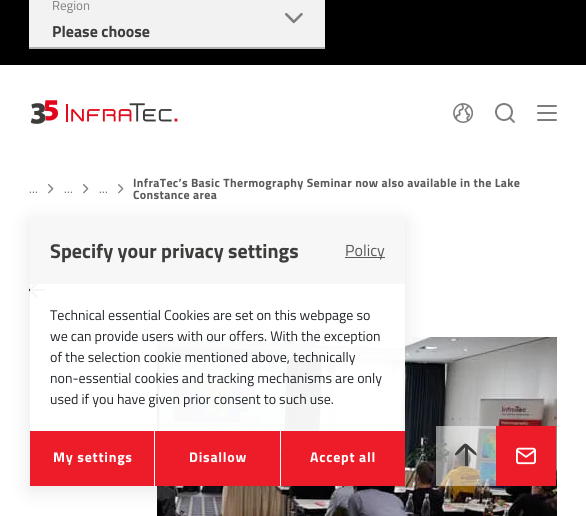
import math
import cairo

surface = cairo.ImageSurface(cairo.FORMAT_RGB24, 586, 516)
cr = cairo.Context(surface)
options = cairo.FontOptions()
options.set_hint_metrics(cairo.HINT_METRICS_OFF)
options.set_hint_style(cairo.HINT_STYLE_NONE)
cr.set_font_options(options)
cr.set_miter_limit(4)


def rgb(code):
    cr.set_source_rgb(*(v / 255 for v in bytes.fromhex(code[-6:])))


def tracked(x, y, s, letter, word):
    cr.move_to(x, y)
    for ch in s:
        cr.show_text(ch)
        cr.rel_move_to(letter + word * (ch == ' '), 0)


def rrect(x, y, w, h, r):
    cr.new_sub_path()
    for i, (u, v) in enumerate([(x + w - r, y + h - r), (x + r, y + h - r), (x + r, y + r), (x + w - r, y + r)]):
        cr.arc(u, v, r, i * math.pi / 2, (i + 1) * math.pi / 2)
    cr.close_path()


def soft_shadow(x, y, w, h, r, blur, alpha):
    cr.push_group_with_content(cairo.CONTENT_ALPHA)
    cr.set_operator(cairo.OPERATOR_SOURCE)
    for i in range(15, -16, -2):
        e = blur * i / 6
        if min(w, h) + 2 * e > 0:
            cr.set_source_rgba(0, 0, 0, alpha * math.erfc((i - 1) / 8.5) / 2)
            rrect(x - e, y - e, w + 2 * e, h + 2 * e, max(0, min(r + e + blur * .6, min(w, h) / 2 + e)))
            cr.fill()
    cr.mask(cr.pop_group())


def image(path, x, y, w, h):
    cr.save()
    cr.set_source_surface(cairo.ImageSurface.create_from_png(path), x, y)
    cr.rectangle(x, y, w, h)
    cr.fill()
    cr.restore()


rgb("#ffffff")
cr.paint()
rgb("#000000")
cr.rectangle(0, 0, 586, 65)
cr.fill()
rgb("#f2f2f2")
cr.rectangle(29, 0, 296, 47)
cr.fill()
image("img/1.png", 285, 13, 18, 11)
rgb("#b3b3b3")
cr.rectangle(29, 47, 296, 2)
cr.fill()
image("img/2.png", 30, 100, 148, 24)
image("img/3.png", 453, 103, 20, 20)
image("img/4.png", 495, 103, 20, 20)
image("img/5.png", 537, 105, 20, 16)
image("img/6.png", 48, 184, 6, 10)
image("img/6.png", 83, 184, 6, 10)
image("img/6.png", 118, 184, 6, 10)
image("img/7.png", 29, 282, 16, 16)
image("img/8.png", 157, 337, 400, 179)
cr.save()
cr.set_fill_rule(cairo.FILL_RULE_EVEN_ODD)
cr.new_path()
cr.move_to(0, 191)
cr.line_to(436, 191)
cr.line_to(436, 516)
cr.line_to(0, 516)
cr.close_path()
cr.move_to(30, 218)
cr.line_to(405, 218)
cr.line_to(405, 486)
cr.line_to(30, 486)
cr.close_path()
cr.clip()
rgb("#000000")
soft_shadow(30, 222, 375, 268, 0, 10, 0.1)
cr.restore()
cr.set_source_rgba(1, 1, 1, 0.95)
cr.rectangle(30, 282, 375, 204)
cr.fill()
cr.set_source_rgba(0.969, 0.969, 0.969, 0.95)
cr.rectangle(30, 218, 375, 66)
cr.fill()
rgb("#595959")
cr.rectangle(345, 257, 40, 1)
cr.fill()
rgb("#ed1c29")
cr.rectangle(30, 431, 124, 55)
cr.rectangle(155, 431, 125, 55)
cr.rectangle(281, 431, 124, 55)
cr.fill()
cr.set_source_rgba(1, 1, 1, 0.5)
cr.rectangle(436, 426, 60, 60)
cr.fill()
rgb("#3d3d3c")
cr.rectangle(465, 446, 3, 20)
cr.fill()
cr.new_path()
cr.move_to(464, 448.5)
cr.line_to(460.5, 452)
cr.curve_to(459.5, 453, 458, 454.5, 456.5, 455)
cr.curve_to(452.5, 456.5, 456.5, 451.5, 457.5, 450.5)
cr.curve_to(459, 449, 463.5, 443.5, 465.5, 443.5)
cr.line_to(466.5, 444.5)
cr.curve_to(467, 445, 464.5, 448, 464, 448.5)
cr.close_path()
cr.fill()
cr.new_path()
cr.move_to(469.5, 446.5)
cr.line_to(473.5, 450)
cr.curve_to(474.5, 451, 476, 452.5, 476.5, 454)
cr.curve_to(478, 457.5, 473, 453.5, 472, 452.5)
cr.curve_to(470.5, 451.5, 465, 446.5, 465, 445)
cr.line_to(466, 444)
cr.curve_to(466.5, 443.5, 469.5, 446, 469.5, 446.5)
cr.close_path()
cr.fill()
rgb("#ed1c29")
cr.rectangle(496, 426, 60, 60)
cr.fill()
image("img/9.png", 516, 447, 20, 18)
cr.select_font_face("Titillium Web")
cr.set_font_size(13)
rgb("#7f7f7f")
cr.move_to(52, 10)
cr.show_text("Region")
cr.select_font_face("Titillium Web", cairo.FONT_SLANT_NORMAL, cairo.FONT_WEIGHT_BOLD)
cr.set_font_size(16)
rgb("#3d3d3c")
cr.move_to(52, 37)
cr.show_text("Please choose")
cr.select_font_face("Titillium Web")
cr.set_font_size(12)
rgb("#595959")
for x, y, s in [
    (29, 193, "..."),
    (64, 193, "..."),
    (99, 193, "..."),
]:
    tracked(x, y, s, 0.35, 0)
cr.select_font_face("Titillium Web", cairo.FONT_SLANT_NORMAL, cairo.FONT_WEIGHT_BOLD)
tracked(133, 187, "InfraTec’s Basic Thermography Seminar now also available in the Lake", 0.35, 0)
tracked(133, 199, "Constance area", 0.35, 0)
cr.set_font_size(20)
rgb("#3d3d3c")
cr.move_to(50, 258)
cr.show_text("Specify your privacy settings")
cr.select_font_face("Titillium Web")
cr.set_font_size(16)
rgb("#595959")
cr.move_to(345, 256)
cr.show_text("Policy")
cr.set_font_size(14)
rgb("#212529")
for x, y, s in [
    (50, 320, "Technical essential Cookies are set on this webpage so"),
    (50, 341, "we can provide users with our offers. With the exception"),
    (50, 362, "of the selection cookie mentioned above, technically"),
    (50, 383, "non-essential cookies and tracking mechanisms are only"),
    (50, 404, "used if you have given prior consent to such use."),
]:
    cr.move_to(x, y)
    cr.show_text(s)
cr.select_font_face("Titillium Web", cairo.FONT_SLANT_NORMAL, cairo.FONT_WEIGHT_BOLD)
rgb("#ffffff")
for x, y, s in [
    (53, 462, "My settings"),
    (189, 462, "Disallow"),
    (310, 462, "Accept all"),
]:
    tracked(x, y, s, 0.75, 0)
surface.write_to_png("page.png")
